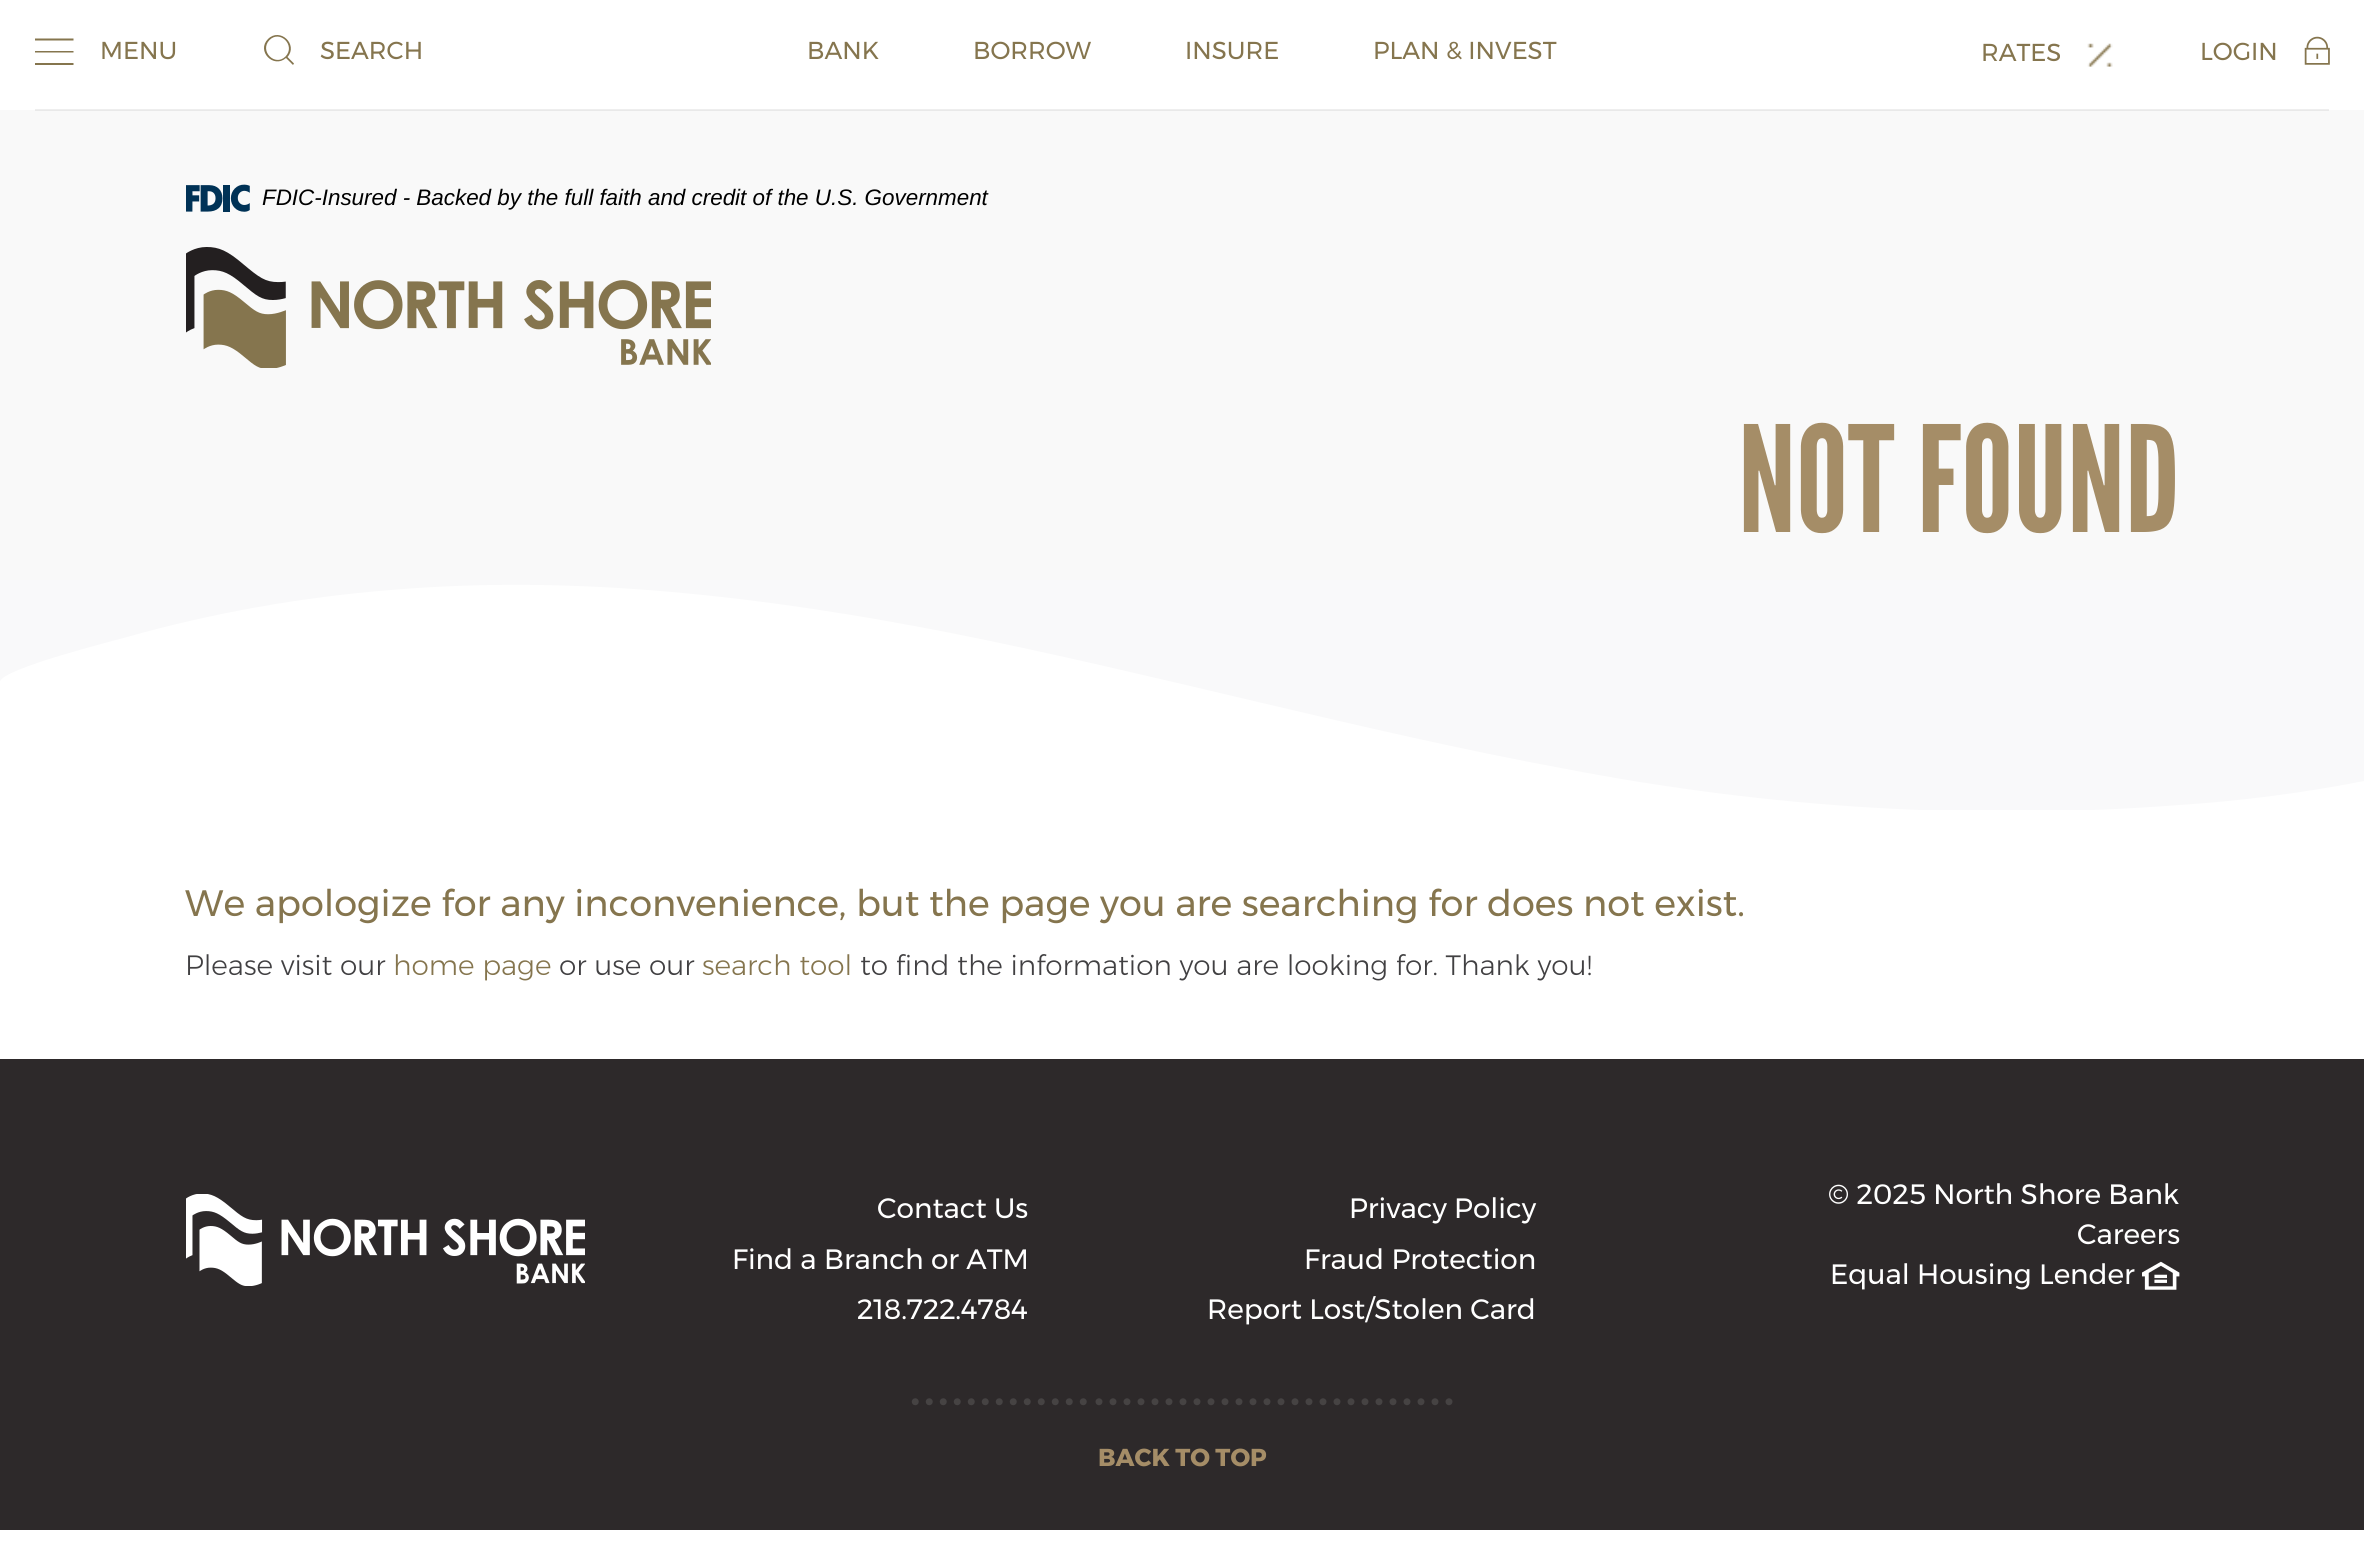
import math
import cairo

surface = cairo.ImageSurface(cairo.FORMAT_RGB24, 2364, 1562)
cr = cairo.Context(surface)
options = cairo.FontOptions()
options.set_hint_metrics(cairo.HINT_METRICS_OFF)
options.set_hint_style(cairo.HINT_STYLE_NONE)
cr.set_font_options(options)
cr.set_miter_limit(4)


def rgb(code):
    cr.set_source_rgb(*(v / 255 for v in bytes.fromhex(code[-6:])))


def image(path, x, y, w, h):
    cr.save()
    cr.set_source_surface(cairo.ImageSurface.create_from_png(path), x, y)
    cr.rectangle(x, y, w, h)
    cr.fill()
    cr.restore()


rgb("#ffffff")
cr.paint()
rgb("#eeeeee")
cr.rectangle(35, 109, 2294, 1)
cr.fill()
rgb("#85754e")
cr.new_path()
cr.move_to(35, 51)
cr.line_to(73.5, 51)
cr.line_to(73.5, 52.5)
cr.line_to(35, 52.5)
cr.close_path()
cr.move_to(35, 63)
cr.line_to(73.5, 63)
cr.line_to(73.5, 65)
cr.line_to(35, 65)
cr.close_path()
cr.move_to(35, 38.5)
cr.line_to(73.5, 38.5)
cr.line_to(73.5, 40.5)
cr.line_to(35, 40.5)
cr.close_path()
cr.fill()
cr.new_path()
cr.move_to(287.5, 57)
cr.curve_to(298.5, 44.5, 280, 27, 268, 39)
cr.curve_to(256, 51, 273.5, 69, 286, 58)
cr.line_to(293, 65)
cr.line_to(294, 63.5)
cr.close_path()
cr.move_to(285.5, 56.5)
cr.curve_to(275, 67, 259, 51, 269.5, 40)
cr.curve_to(280, 29.5, 296, 45.5, 285.5, 56.5)
cr.close_path()
cr.fill()
image("img/1.png", 2087, 43, 26, 24)
image("img/2.png", 2304, 36, 26, 29)
rgb("#f9f9f9")
cr.rectangle(0, 110, 2364, 470)
cr.fill()
rgb("#e9e9e9")
cr.rectangle(35, 110, 2294, 1)
cr.fill()
image("img/3.png", 186, 184, 64, 28)
image("img/4.png", 186, 247, 525, 121)
cr.save()
cr.rectangle(0, 579, 2364, 231)
cr.clip()
rgb("#f9f9fa")
cr.new_path()
cr.move_to(0, 682)
cr.curve_to(0, 669, 117, 640, 127, 637)
cr.curve_to(212, 613, 302, 597, 391, 590)
cr.curve_to(578, 574, 767, 597, 951, 633)
cr.curve_to(1157, 674, 1360, 731, 1566, 769)
cr.curve_to(1769, 808, 1974, 821, 2179, 805)
cr.curve_to(2241, 801, 2303, 793, 2364, 781)
cr.line_to(2364, 580)
cr.line_to(0, 580)
cr.close_path()
cr.fill()
cr.restore()
rgb("#2d292a")
cr.rectangle(0, 1059, 2364, 471)
cr.fill()
image("img/5.png", 186, 1194, 399, 92)
image("img/6.png", 2142, 1261, 38, 29)
image("img/7.png", 911, 1398, 176, 8)
image("img/8.png", 1095, 1398, 176, 8)
image("img/8.png", 1277, 1398, 176, 8)
cr.select_font_face("Montserrat")
cr.set_font_size(24.5)
rgb("#85754e")
for x, y, s in [
    (100, 59, "MENU"),
    (320, 59, "SEARCH"),
    (807, 59, "BANK"),
    (973, 59, "BORROW"),
    (1185, 59, "INSURE"),
    (1373, 59, "PLAN & INVEST"),
    (1981, 61, "RATES"),
    (2200, 60, "LOGIN"),
]:
    cr.move_to(x, y)
    cr.show_text(s)
cr.select_font_face("Liberation Sans", cairo.FONT_SLANT_ITALIC)
cr.set_font_size(22.4)
rgb("#000000")
cr.move_to(262, 205)
cr.show_text("FDIC-Insured - Backed by the full faith and credit of the U.S. Government")
cr.select_font_face("League Gothic")
cr.set_font_size(147)
rgb("#a58d67")
cr.move_to(1738, 532)
cr.show_text("NOT FOUND")
cr.select_font_face("Montserrat")
cr.set_font_size(36.75)
rgb("#85754e")
cr.move_to(185, 916)
cr.show_text("We apologize for any inconvenience, but the page you are searching for does not exist.")
cr.select_font_face("Montserrat Light")
cr.set_font_size(28)
rgb("#414042")
cr.move_to(185, 975)
cr.show_text("Please visit our")
rgb("#85754e")
cr.move_to(393, 975)
cr.show_text("home page")
rgb("#414042")
cr.move_to(559, 975)
cr.show_text("or use our")
rgb("#85754e")
cr.move_to(702, 975)
cr.show_text("search tool")
rgb("#414042")
cr.move_to(860, 975)
cr.show_text("to find the information you are looking for. Thank you!")
cr.select_font_face("Montserrat")
rgb("#ffffff")
for x, y, s in [
    (877, 1218, "Contact Us"),
    (732, 1269, "Find a Branch or ATM"),
    (857, 1319, "218.722.4784"),
    (1349, 1218, "Privacy Policy"),
    (1304, 1269, "Fraud Protection"),
    (1207, 1319, "Report Lost/Stolen Card"),
    (1828, 1204, "© 2025 North Shore Bank"),
    (2077, 1244, "Careers"),
    (1830, 1284, "Equal Housing Lender"),
]:
    cr.move_to(x, y)
    cr.show_text(s)
cr.select_font_face("Montserrat", cairo.FONT_SLANT_NORMAL, cairo.FONT_WEIGHT_BOLD)
cr.set_font_size(24.5)
rgb("#a58d67")
cr.move_to(1098, 1466)
cr.show_text("BACK TO TOP")
surface.write_to_png("page.png")
